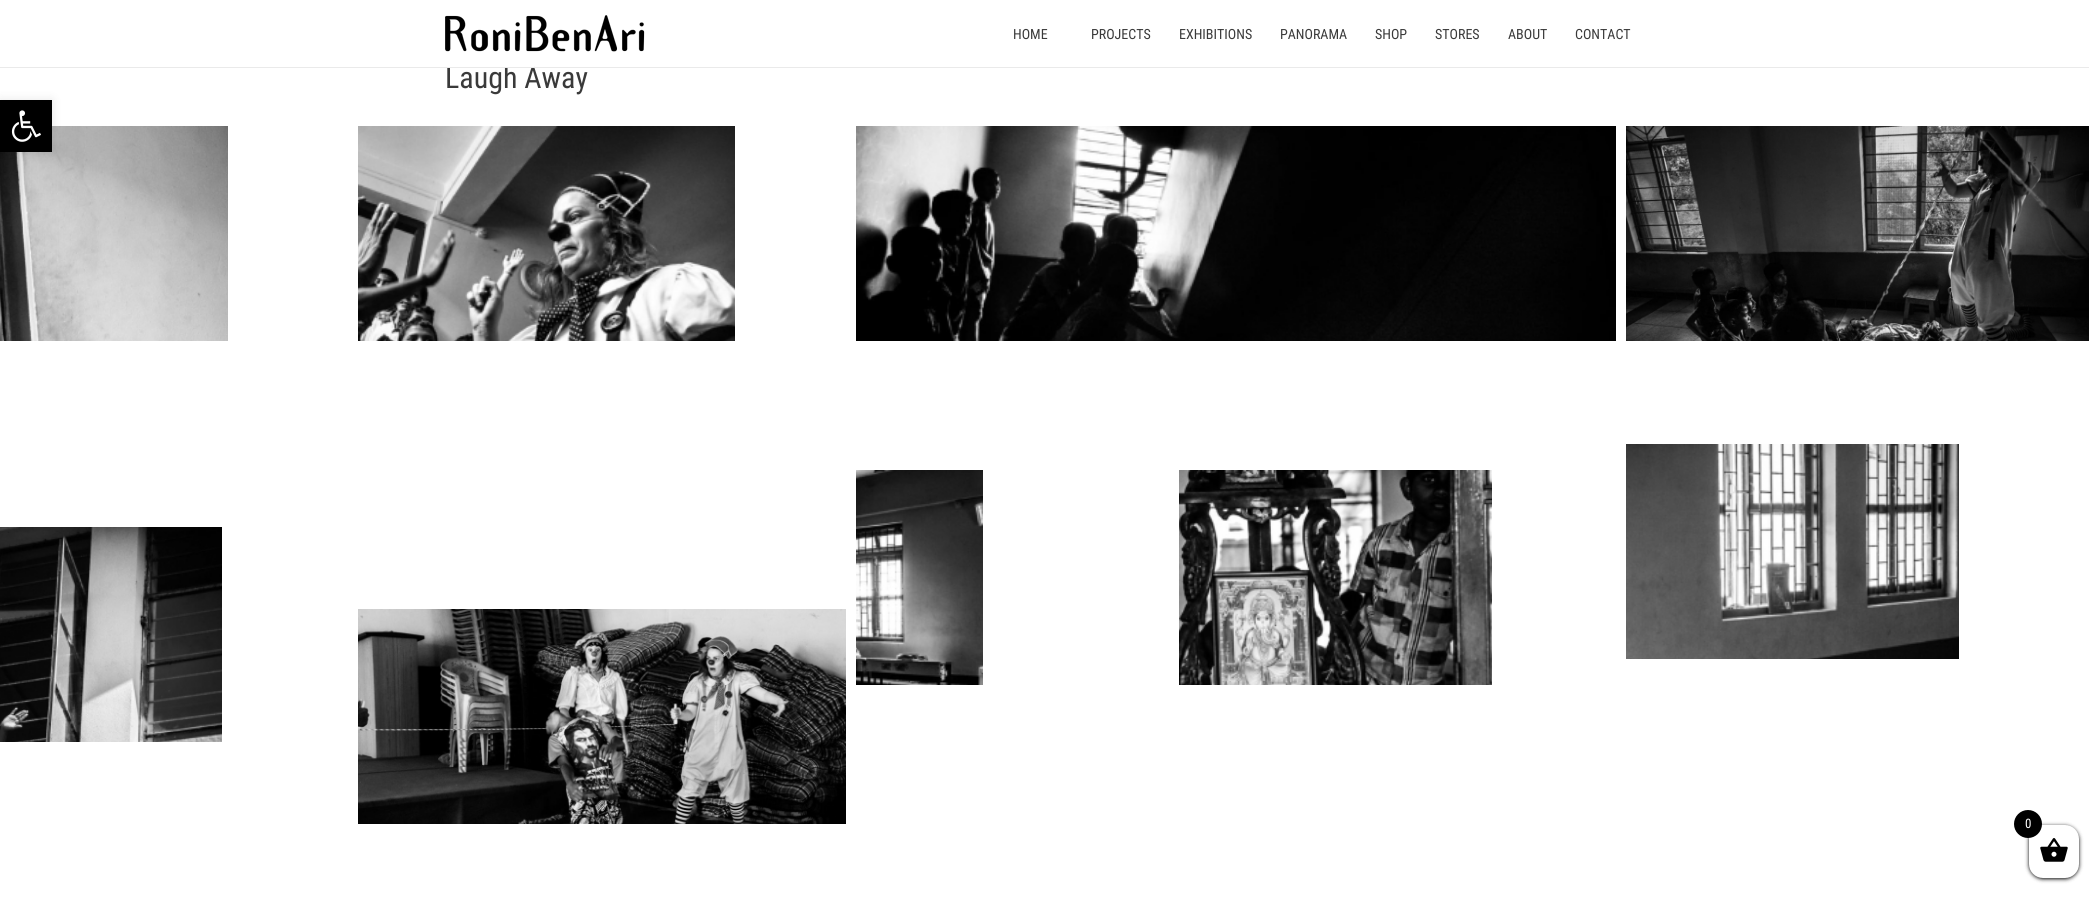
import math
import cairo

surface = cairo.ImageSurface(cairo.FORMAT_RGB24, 2089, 900)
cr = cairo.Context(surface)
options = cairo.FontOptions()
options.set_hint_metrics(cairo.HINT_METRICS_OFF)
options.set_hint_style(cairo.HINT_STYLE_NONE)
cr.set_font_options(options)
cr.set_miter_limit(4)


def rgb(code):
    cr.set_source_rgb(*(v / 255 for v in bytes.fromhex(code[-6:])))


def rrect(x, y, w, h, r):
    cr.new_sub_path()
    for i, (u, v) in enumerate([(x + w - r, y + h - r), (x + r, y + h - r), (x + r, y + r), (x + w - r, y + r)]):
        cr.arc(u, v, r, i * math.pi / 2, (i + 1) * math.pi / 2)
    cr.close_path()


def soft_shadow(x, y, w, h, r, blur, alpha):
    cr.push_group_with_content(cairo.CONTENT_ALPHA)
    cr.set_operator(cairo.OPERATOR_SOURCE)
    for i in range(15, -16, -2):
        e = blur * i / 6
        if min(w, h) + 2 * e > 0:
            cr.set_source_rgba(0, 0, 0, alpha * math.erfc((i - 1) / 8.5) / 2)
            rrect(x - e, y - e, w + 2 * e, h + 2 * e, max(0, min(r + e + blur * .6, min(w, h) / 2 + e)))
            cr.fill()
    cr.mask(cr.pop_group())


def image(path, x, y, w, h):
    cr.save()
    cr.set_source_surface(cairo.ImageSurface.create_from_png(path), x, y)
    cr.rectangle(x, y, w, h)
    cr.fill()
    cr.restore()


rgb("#ffffff")
cr.paint()
image("img/1.png", 445, 15, 200, 37)
image("img/2.png", 0, 126, 228, 215)
image("img/3.png", 358, 126, 377, 215)
image("img/4.png", 856, 126, 760, 215)
image("img/5.png", 1626, 126, 463, 215)
image("img/6.png", 0, 527, 222, 215)
image("img/7.png", 358, 609, 488, 215)
image("img/8.png", 856, 470, 127, 215)
image("img/9.png", 1179, 470, 313, 215)
image("img/10.png", 1626, 444, 333, 215)
rgb("#000000")
soft_shadow(0, 100, 52, 52, 0, 5, 0.1)
rgb("#000000")
cr.rectangle(0, 100, 52, 52)
cr.fill()
image("img/11.png", 11, 110, 30, 32)
rgb("#000000")
soft_shadow(2029, 826, 50, 53, 14, 2, 1)
rgb("#ffffff")
rrect(2029, 825, 50, 53, 14)
cr.fill()
rgb("#000000")
cr.arc(2028, 824, 14, 0, 2 * math.pi)
cr.fill()
image("img/12.png", 2040, 838, 28, 24)
cr.select_font_face("Roboto Condensed")
cr.set_font_size(14)
rgb("#3a3a3a")
for x, y, s in [
    (1013, 39, "HOME"),
    (1091, 39, "PROJECTS"),
    (1179, 39, "EXHIBITIONS"),
    (1280, 39, "PANORAMA"),
    (1375, 39, "SHOP"),
    (1435, 39, "STORES"),
    (1508, 39, "ABOUT"),
    (1575, 39, "CONTACT"),
]:
    cr.move_to(x, y)
    cr.show_text(s)
cr.set_font_size(30)
cr.move_to(445, 88)
cr.show_text("Laugh Away")
rgb("#eaeaea")
cr.rectangle(0, 67, 2089, 1)
cr.fill()
rgb("#ffffff")
cr.rectangle(446, 65, 88, 2)
cr.fill()
cr.set_font_size(13)
cr.move_to(2025, 828)
cr.show_text("0")
surface.write_to_png("page.png")
